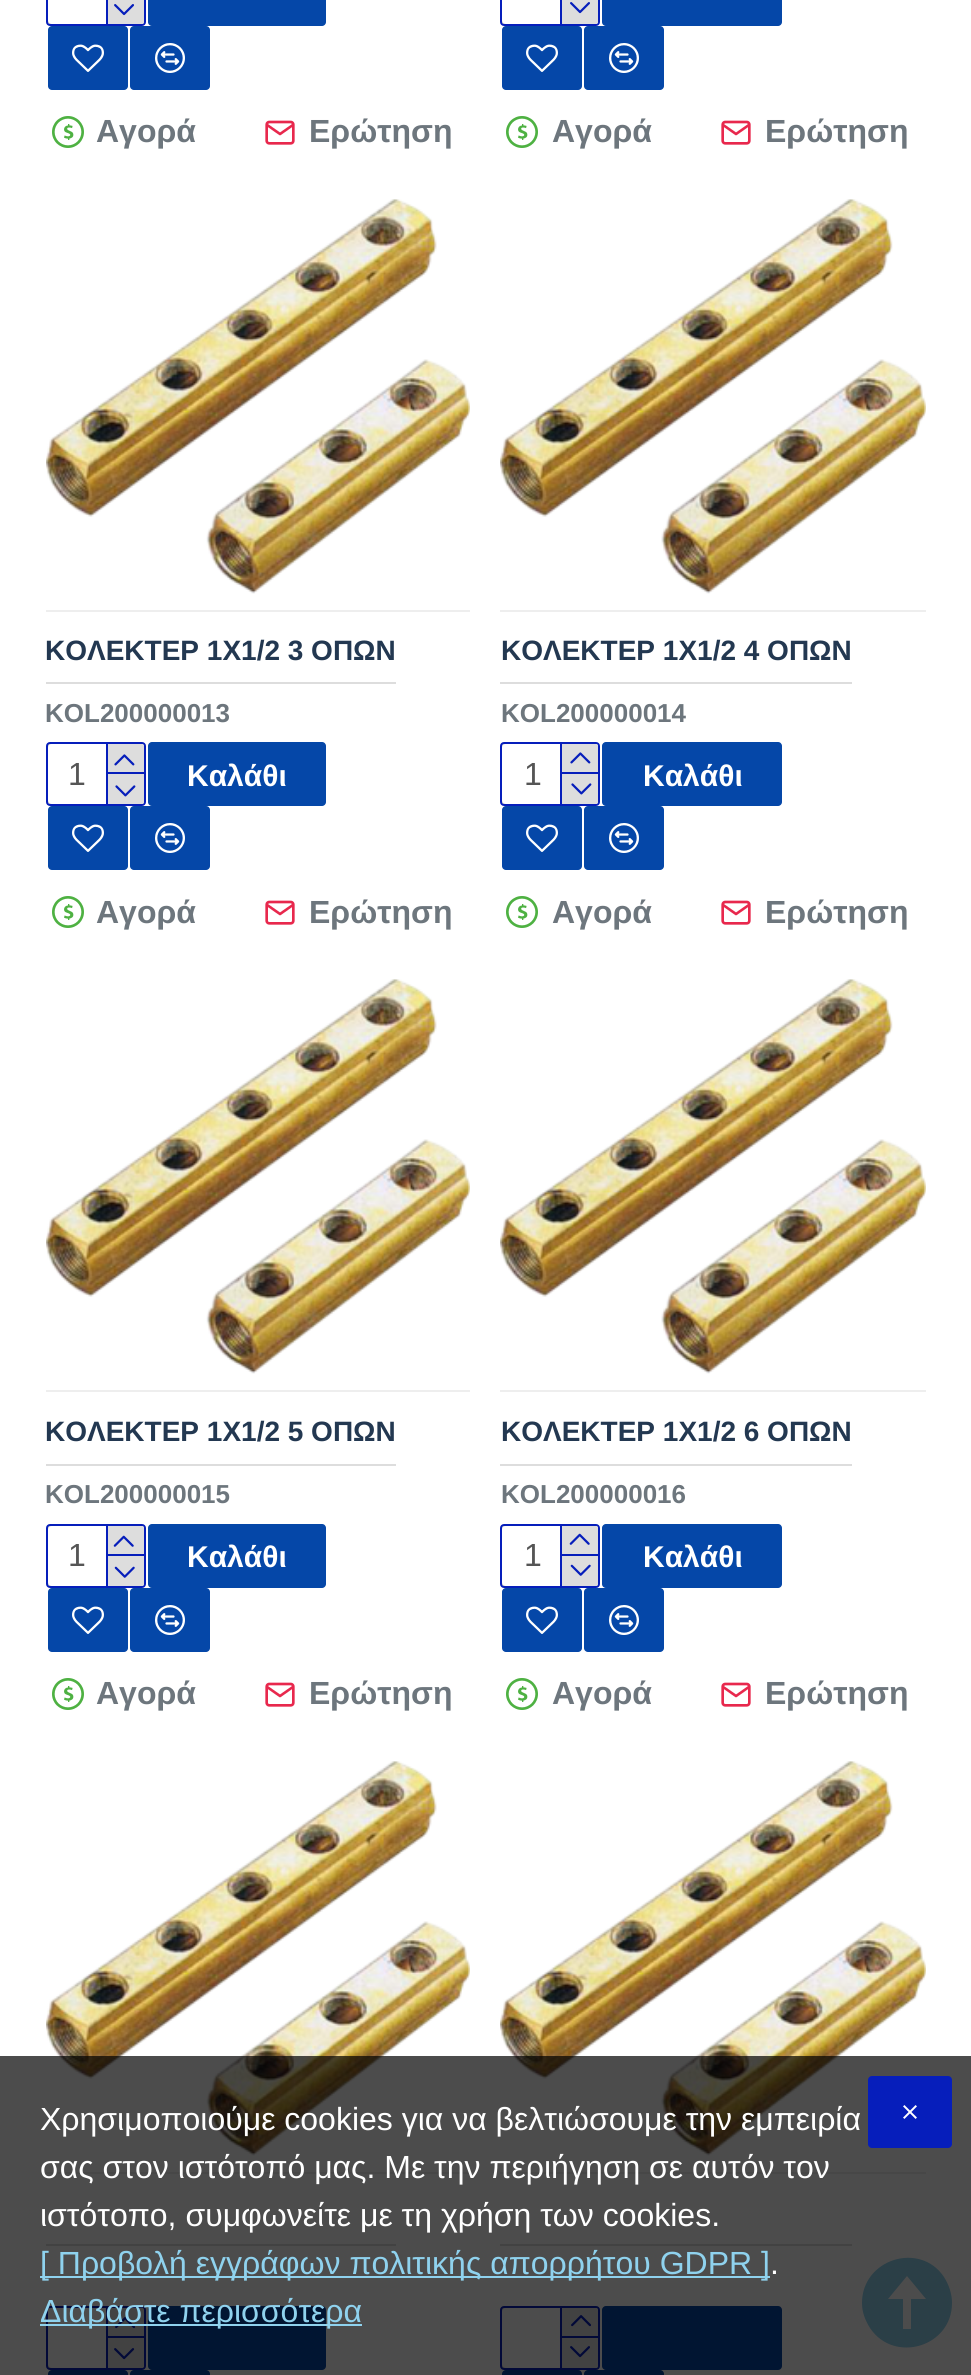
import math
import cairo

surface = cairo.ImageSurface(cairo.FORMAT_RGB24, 971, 2375)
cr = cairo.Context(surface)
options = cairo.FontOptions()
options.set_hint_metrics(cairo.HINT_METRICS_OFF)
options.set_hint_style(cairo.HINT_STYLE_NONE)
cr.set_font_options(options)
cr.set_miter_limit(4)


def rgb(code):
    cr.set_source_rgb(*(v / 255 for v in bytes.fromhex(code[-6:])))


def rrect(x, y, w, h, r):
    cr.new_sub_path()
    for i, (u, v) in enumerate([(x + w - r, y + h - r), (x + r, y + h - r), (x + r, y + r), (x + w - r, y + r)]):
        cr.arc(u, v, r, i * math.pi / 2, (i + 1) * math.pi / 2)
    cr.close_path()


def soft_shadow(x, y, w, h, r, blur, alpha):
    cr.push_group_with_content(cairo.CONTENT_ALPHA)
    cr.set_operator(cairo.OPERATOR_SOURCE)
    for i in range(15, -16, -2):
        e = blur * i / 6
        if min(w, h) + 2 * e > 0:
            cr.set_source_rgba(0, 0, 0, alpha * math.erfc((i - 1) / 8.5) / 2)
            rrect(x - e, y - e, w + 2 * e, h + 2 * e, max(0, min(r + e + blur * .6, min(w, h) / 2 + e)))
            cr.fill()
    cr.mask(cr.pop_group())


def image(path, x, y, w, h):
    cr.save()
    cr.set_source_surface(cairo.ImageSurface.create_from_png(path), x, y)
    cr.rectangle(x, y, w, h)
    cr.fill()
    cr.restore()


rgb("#ffffff")
cr.paint()
rrect(47, -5, 98, 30, 3)
rgb("#061ebb")
cr.stroke()
cr.save()
rrect(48, -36, 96, 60, 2)
cr.clip()
rgb("#555555")
soft_shadow(52, -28, 88, 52, 0, 15, 1)
cr.restore()
rgb("#ffffff")
rrect(48, -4, 96, 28, 4)
cr.fill()
rgb("#061ebb")
cr.rectangle(106, 0, 2, 24)
cr.fill()
rgb("#dddddd")
cr.new_path()
cr.move_to(108, -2)
cr.line_to(144, -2)
cr.line_to(144, 22)
cr.curve_to(144, 23, 143, 24, 142, 24)
cr.line_to(108, 24)
cr.close_path()
cr.fill()
image("img/1.png", 114, 4, 20, 12)
rgb("#0547a8")
rrect(148, -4, 178, 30, 4)
cr.fill()
rrect(48, 26, 80, 64, 4)
cr.fill()
image("img/2.png", 72, 44, 32, 28)
rrect(130, 26, 80, 64, 4)
cr.fill()
image("img/3.png", 155, 43, 30, 30)
image("img/4.png", 52, 116, 32, 32)
image("img/5.png", 265, 120, 30, 25)
rrect(501, -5, 98, 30, 3)
rgb("#061ebb")
cr.stroke()
cr.save()
rrect(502, -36, 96, 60, 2)
cr.clip()
rgb("#555555")
soft_shadow(506, -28, 88, 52, 0, 15, 1)
cr.restore()
rgb("#ffffff")
rrect(502, -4, 96, 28, 4)
cr.fill()
rgb("#061ebb")
cr.rectangle(560, 0, 2, 24)
cr.fill()
rgb("#dddddd")
cr.new_path()
cr.move_to(562, -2)
cr.line_to(598, -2)
cr.line_to(598, 22)
cr.curve_to(598, 23, 597, 24, 596, 24)
cr.line_to(562, 24)
cr.close_path()
cr.fill()
image("img/6.png", 570, 2, 20, 12)
rgb("#0547a8")
rrect(602, -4, 180, 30, 4)
cr.fill()
rrect(502, 26, 80, 64, 4)
cr.fill()
image("img/2.png", 526, 44, 32, 28)
rrect(584, 26, 80, 64, 4)
cr.fill()
image("img/3.png", 609, 43, 30, 30)
image("img/4.png", 506, 116, 32, 32)
image("img/5.png", 721, 120, 30, 25)
image("img/7.png", 46, 199, 424, 395)
rgb("#eeeeee")
cr.rectangle(46, 610, 424, 2)
cr.fill()
rgb("#dddddd")
cr.rectangle(46, 682, 350, 2)
cr.fill()
rrect(47, 743, 98, 62, 3)
rgb("#061ebb")
cr.stroke()
cr.save()
rrect(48, 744, 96, 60, 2)
cr.clip()
rgb("#555555")
soft_shadow(52, 752, 88, 52, 0, 15, 1)
cr.restore()
rgb("#ffffff")
rrect(48, 744, 96, 60, 4)
cr.fill()
rgb("#061ebb")
cr.rectangle(106, 744, 2, 60)
cr.fill()
rgb("#dddddd")
cr.new_path()
cr.move_to(108, 744)
cr.line_to(142, 744)
cr.curve_to(143, 744, 144, 745, 144, 746)
cr.line_to(144, 772)
cr.line_to(108, 772)
cr.close_path()
cr.fill()
rgb("#061ebb")
cr.rectangle(108, 772, 36, 2)
cr.fill()
image("img/8.png", 114, 754, 21, 12)
rgb("#dddddd")
cr.new_path()
cr.move_to(108, 774)
cr.line_to(144, 774)
cr.line_to(144, 802)
cr.curve_to(144, 803, 143, 804, 142, 804)
cr.line_to(108, 804)
cr.close_path()
cr.fill()
image("img/9.png", 115, 785, 21, 12)
rgb("#0547a8")
rrect(148, 742, 178, 64, 4)
cr.fill()
rrect(48, 806, 80, 64, 4)
cr.fill()
image("img/2.png", 72, 824, 32, 28)
rrect(130, 806, 80, 64, 4)
cr.fill()
image("img/3.png", 155, 823, 30, 30)
image("img/4.png", 52, 896, 32, 32)
image("img/5.png", 265, 900, 30, 25)
image("img/10.png", 500, 199, 426, 395)
rgb("#eeeeee")
cr.rectangle(500, 610, 426, 2)
cr.fill()
rgb("#dddddd")
cr.rectangle(500, 682, 352, 2)
cr.fill()
rrect(501, 743, 98, 62, 3)
rgb("#061ebb")
cr.stroke()
cr.save()
rrect(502, 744, 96, 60, 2)
cr.clip()
rgb("#555555")
soft_shadow(506, 752, 88, 52, 0, 15, 1)
cr.restore()
rgb("#ffffff")
rrect(502, 744, 96, 60, 4)
cr.fill()
rgb("#061ebb")
cr.rectangle(560, 744, 2, 60)
cr.fill()
rgb("#dddddd")
cr.new_path()
cr.move_to(562, 744)
cr.line_to(596, 744)
cr.curve_to(597, 744, 598, 745, 598, 746)
cr.line_to(598, 772)
cr.line_to(562, 772)
cr.close_path()
cr.fill()
rgb("#061ebb")
cr.rectangle(562, 772, 36, 2)
cr.fill()
image("img/11.png", 570, 752, 21, 12)
rgb("#dddddd")
cr.new_path()
cr.move_to(562, 774)
cr.line_to(598, 774)
cr.line_to(598, 802)
cr.curve_to(598, 803, 597, 804, 596, 804)
cr.line_to(562, 804)
cr.close_path()
cr.fill()
image("img/12.png", 571, 783, 21, 12)
rgb("#0547a8")
rrect(602, 742, 180, 64, 4)
cr.fill()
rrect(502, 806, 80, 64, 4)
cr.fill()
image("img/2.png", 526, 824, 32, 28)
rrect(584, 806, 80, 64, 4)
cr.fill()
image("img/3.png", 609, 823, 30, 30)
image("img/4.png", 506, 896, 32, 32)
image("img/5.png", 721, 900, 30, 25)
image("img/7.png", 46, 979, 424, 395)
rgb("#eeeeee")
cr.rectangle(46, 1390, 424, 2)
cr.fill()
rgb("#dddddd")
cr.rectangle(46, 1464, 350, 2)
cr.fill()
rrect(47, 1525, 98, 62, 3)
rgb("#061ebb")
cr.stroke()
cr.save()
rrect(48, 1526, 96, 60, 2)
cr.clip()
rgb("#555555")
soft_shadow(52, 1534, 88, 52, 0, 15, 1)
cr.restore()
rgb("#ffffff")
rrect(48, 1526, 96, 60, 4)
cr.fill()
rgb("#061ebb")
cr.rectangle(106, 1526, 2, 60)
cr.fill()
rgb("#dddddd")
cr.new_path()
cr.move_to(108, 1526)
cr.line_to(142, 1526)
cr.curve_to(143, 1526, 144, 1527, 144, 1528)
cr.line_to(144, 1554)
cr.line_to(108, 1554)
cr.close_path()
cr.fill()
rgb("#061ebb")
cr.rectangle(108, 1554, 36, 2)
cr.fill()
image("img/13.png", 113, 1535, 21, 12)
rgb("#dddddd")
cr.new_path()
cr.move_to(108, 1556)
cr.line_to(144, 1556)
cr.line_to(144, 1584)
cr.curve_to(144, 1585, 143, 1586, 142, 1586)
cr.line_to(108, 1586)
cr.close_path()
cr.fill()
image("img/14.png", 114, 1566, 21, 12)
rgb("#0547a8")
rrect(148, 1524, 178, 64, 4)
cr.fill()
rrect(48, 1588, 80, 64, 4)
cr.fill()
image("img/2.png", 72, 1606, 32, 28)
rrect(130, 1588, 80, 64, 4)
cr.fill()
image("img/3.png", 155, 1605, 30, 30)
image("img/4.png", 52, 1678, 32, 32)
image("img/5.png", 265, 1682, 30, 25)
image("img/10.png", 500, 979, 426, 395)
rgb("#eeeeee")
cr.rectangle(500, 1390, 426, 2)
cr.fill()
rgb("#dddddd")
cr.rectangle(500, 1464, 352, 2)
cr.fill()
rrect(501, 1525, 98, 62, 3)
rgb("#061ebb")
cr.stroke()
cr.save()
rrect(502, 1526, 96, 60, 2)
cr.clip()
rgb("#555555")
soft_shadow(506, 1534, 88, 52, 0, 15, 1)
cr.restore()
rgb("#ffffff")
rrect(502, 1526, 96, 60, 4)
cr.fill()
rgb("#061ebb")
cr.rectangle(560, 1526, 2, 60)
cr.fill()
rgb("#dddddd")
cr.new_path()
cr.move_to(562, 1526)
cr.line_to(596, 1526)
cr.curve_to(597, 1526, 598, 1527, 598, 1528)
cr.line_to(598, 1554)
cr.line_to(562, 1554)
cr.close_path()
cr.fill()
rgb("#061ebb")
cr.rectangle(562, 1554, 36, 2)
cr.fill()
image("img/15.png", 569, 1533, 21, 12)
rgb("#dddddd")
cr.new_path()
cr.move_to(562, 1556)
cr.line_to(598, 1556)
cr.line_to(598, 1584)
cr.curve_to(598, 1585, 597, 1586, 596, 1586)
cr.line_to(562, 1586)
cr.close_path()
cr.fill()
image("img/16.png", 570, 1564, 21, 12)
rgb("#0547a8")
rrect(602, 1524, 180, 64, 4)
cr.fill()
rrect(502, 1588, 80, 64, 4)
cr.fill()
image("img/2.png", 526, 1606, 32, 28)
rrect(584, 1588, 80, 64, 4)
cr.fill()
image("img/3.png", 609, 1605, 30, 30)
image("img/4.png", 506, 1678, 32, 32)
image("img/5.png", 721, 1682, 30, 25)
image("img/7.png", 46, 1761, 424, 395)
rgb("#eeeeee")
cr.rectangle(46, 2172, 424, 2)
cr.fill()
rgb("#dddddd")
cr.rectangle(46, 2244, 350, 2)
cr.fill()
rrect(47, 2307, 98, 62, 3)
rgb("#061ebb")
cr.stroke()
cr.save()
rrect(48, 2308, 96, 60, 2)
cr.clip()
rgb("#555555")
soft_shadow(52, 2316, 88, 52, 0, 15, 1)
cr.restore()
rgb("#ffffff")
rrect(48, 2308, 96, 60, 4)
cr.fill()
rgb("#061ebb")
cr.rectangle(106, 2308, 2, 60)
cr.fill()
rgb("#dddddd")
cr.new_path()
cr.move_to(108, 2308)
cr.line_to(142, 2308)
cr.curve_to(143, 2308, 144, 2309, 144, 2310)
cr.line_to(144, 2336)
cr.line_to(108, 2336)
cr.close_path()
cr.fill()
rgb("#061ebb")
cr.rectangle(108, 2336, 36, 2)
cr.fill()
image("img/17.png", 115, 2317, 21, 12)
rgb("#dddddd")
cr.new_path()
cr.move_to(108, 2338)
cr.line_to(144, 2338)
cr.line_to(144, 2366)
cr.curve_to(144, 2367, 143, 2368, 142, 2368)
cr.line_to(108, 2368)
cr.close_path()
cr.fill()
image("img/18.png", 114, 2348, 21, 12)
rgb("#0547a8")
rrect(148, 2306, 178, 64, 4)
cr.fill()
rrect(48, 2370, 80, 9, 4)
cr.fill()
rrect(130, 2370, 80, 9, 4)
cr.fill()
image("img/10.png", 500, 1761, 426, 395)
rgb("#eeeeee")
cr.rectangle(500, 2172, 426, 2)
cr.fill()
rgb("#dddddd")
cr.rectangle(500, 2244, 352, 2)
cr.fill()
rrect(501, 2307, 98, 62, 3)
rgb("#061ebb")
cr.stroke()
cr.save()
rrect(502, 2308, 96, 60, 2)
cr.clip()
rgb("#555555")
soft_shadow(506, 2316, 88, 52, 0, 15, 1)
cr.restore()
rgb("#ffffff")
rrect(502, 2308, 96, 60, 4)
cr.fill()
rgb("#061ebb")
cr.rectangle(560, 2308, 2, 60)
cr.fill()
rgb("#dddddd")
cr.new_path()
cr.move_to(562, 2308)
cr.line_to(596, 2308)
cr.curve_to(597, 2308, 598, 2309, 598, 2310)
cr.line_to(598, 2336)
cr.line_to(562, 2336)
cr.close_path()
cr.fill()
rgb("#061ebb")
cr.rectangle(562, 2336, 36, 2)
cr.fill()
image("img/19.png", 571, 2315, 20, 12)
rgb("#dddddd")
cr.new_path()
cr.move_to(562, 2338)
cr.line_to(598, 2338)
cr.line_to(598, 2366)
cr.curve_to(598, 2367, 597, 2368, 596, 2368)
cr.line_to(562, 2368)
cr.close_path()
cr.fill()
image("img/20.png", 570, 2346, 20, 12)
rgb("#0547a8")
rrect(602, 2306, 180, 64, 4)
cr.fill()
rrect(502, 2370, 80, 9, 4)
cr.fill()
rrect(584, 2370, 80, 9, 4)
cr.fill()
rgb("#8fd2ee")
cr.new_path()
cr.move_to(862, 2303)
cr.curve_to(862, 2312, 865, 2320, 870, 2328)
cr.curve_to(894, 2364, 952, 2347, 952, 2303)
cr.curve_to(952, 2294, 949, 2285, 944, 2277)
cr.curve_to(920, 2241, 862, 2259, 862, 2303)
cr.close_path()
cr.move_to(926, 2299)
cr.line_to(911, 2299)
cr.line_to(911, 2329)
cr.line_to(903, 2329)
cr.line_to(903, 2299)
cr.line_to(888, 2299)
cr.line_to(907, 2276)
cr.close_path()
cr.fill()
cr.set_source_rgba(0, 0, 0, 0.7)
cr.rectangle(0, 2056, 971, 319)
cr.fill()
rgb("#8fd2ee")
cr.rectangle(40, 2276, 730, 2)
cr.rectangle(40, 2324, 322, 2)
cr.fill()
rgb("#061ebb")
rrect(868, 2076, 84, 72, 4)
cr.fill()
image("img/21.png", 903, 2105, 14, 14)
cr.select_font_face("Liberation Sans", cairo.FONT_SLANT_NORMAL, cairo.FONT_WEIGHT_BOLD)
cr.set_font_size(32)
rgb("#6d767d")
for x, y, s in [
    (96, 142, "Αγορά"),
    (309, 142, "Ερώτηση"),
    (552, 142, "Αγορά"),
    (765, 142, "Ερώτηση"),
]:
    cr.move_to(x, y)
    cr.show_text(s)
cr.set_font_size(28)
rgb("#233851")
cr.move_to(45, 660)
cr.show_text("ΚΟΛΕΚΤΕΡ 1Χ1/2 3 ΟΠΩΝ")
cr.set_font_size(26)
rgb("#6d767d")
cr.move_to(45, 722)
cr.show_text("KOL200000013")
cr.select_font_face("Liberation Sans")
cr.set_font_size(32)
rgb("#555555")
cr.move_to(68, 785)
cr.show_text("1")
cr.select_font_face("Liberation Sans", cairo.FONT_SLANT_NORMAL, cairo.FONT_WEIGHT_BOLD)
cr.set_font_size(30)
rgb("#ffffff")
cr.move_to(187, 786)
cr.show_text("Καλάθι")
cr.set_font_size(32)
rgb("#6d767d")
cr.move_to(96, 923)
cr.show_text("Αγορά")
cr.move_to(309, 923)
cr.show_text("Ερώτηση")
cr.set_font_size(28)
rgb("#233851")
cr.move_to(501, 660)
cr.show_text("ΚΟΛΕΚΤΕΡ 1Χ1/2 4 ΟΠΩΝ")
cr.set_font_size(26)
rgb("#6d767d")
cr.move_to(501, 722)
cr.show_text("KOL200000014")
cr.select_font_face("Liberation Sans")
cr.set_font_size(32)
rgb("#555555")
cr.move_to(524, 785)
cr.show_text("1")
cr.select_font_face("Liberation Sans", cairo.FONT_SLANT_NORMAL, cairo.FONT_WEIGHT_BOLD)
cr.set_font_size(30)
rgb("#ffffff")
cr.move_to(643, 786)
cr.show_text("Καλάθι")
cr.set_font_size(32)
rgb("#6d767d")
cr.move_to(552, 923)
cr.show_text("Αγορά")
cr.move_to(765, 923)
cr.show_text("Ερώτηση")
cr.set_font_size(28)
rgb("#233851")
cr.move_to(45, 1441)
cr.show_text("ΚΟΛΕΚΤΕΡ 1Χ1/2 5 ΟΠΩΝ")
cr.set_font_size(26)
rgb("#6d767d")
cr.move_to(45, 1503)
cr.show_text("KOL200000015")
cr.select_font_face("Liberation Sans")
cr.set_font_size(32)
rgb("#555555")
cr.move_to(68, 1566)
cr.show_text("1")
cr.select_font_face("Liberation Sans", cairo.FONT_SLANT_NORMAL, cairo.FONT_WEIGHT_BOLD)
cr.set_font_size(30)
rgb("#ffffff")
cr.move_to(187, 1567)
cr.show_text("Καλάθι")
cr.set_font_size(32)
rgb("#6d767d")
cr.move_to(96, 1704)
cr.show_text("Αγορά")
cr.move_to(309, 1704)
cr.show_text("Ερώτηση")
cr.set_font_size(28)
rgb("#233851")
cr.move_to(501, 1441)
cr.show_text("ΚΟΛΕΚΤΕΡ 1Χ1/2 6 ΟΠΩΝ")
cr.set_font_size(26)
rgb("#6d767d")
cr.move_to(501, 1503)
cr.show_text("KOL200000016")
cr.select_font_face("Liberation Sans")
cr.set_font_size(32)
rgb("#555555")
cr.move_to(524, 1566)
cr.show_text("1")
cr.select_font_face("Liberation Sans", cairo.FONT_SLANT_NORMAL, cairo.FONT_WEIGHT_BOLD)
cr.set_font_size(30)
rgb("#ffffff")
cr.move_to(643, 1567)
cr.show_text("Καλάθι")
cr.set_font_size(32)
rgb("#6d767d")
cr.move_to(552, 1704)
cr.show_text("Αγορά")
cr.move_to(765, 1704)
cr.show_text("Ερώτηση")
cr.select_font_face("Liberation Sans")
rgb("#ffffff")
for x, y, s in [
    (40, 2130, "Χρησιμοποιούμε cookies για να βελτιώσουμε την εμπειρία"),
    (40, 2178, "σας στον ιστότοπό μας. Με την περιήγηση σε αυτόν τον"),
    (40, 2226, "ιστότοπο, συμφωνείτε με τη χρήση των cookies."),
]:
    cr.move_to(x, y)
    cr.show_text(s)
rgb("#8fd2ee")
cr.move_to(40, 2274)
cr.show_text("[ Προβολή εγγράφων πολιτικής απορρήτου GDPR ]")
rgb("#ffffff")
cr.move_to(770, 2274)
cr.show_text(".")
rgb("#8fd2ee")
cr.move_to(40, 2322)
cr.show_text("Διαβάστε περισσότερα")
surface.write_to_png("page.png")
